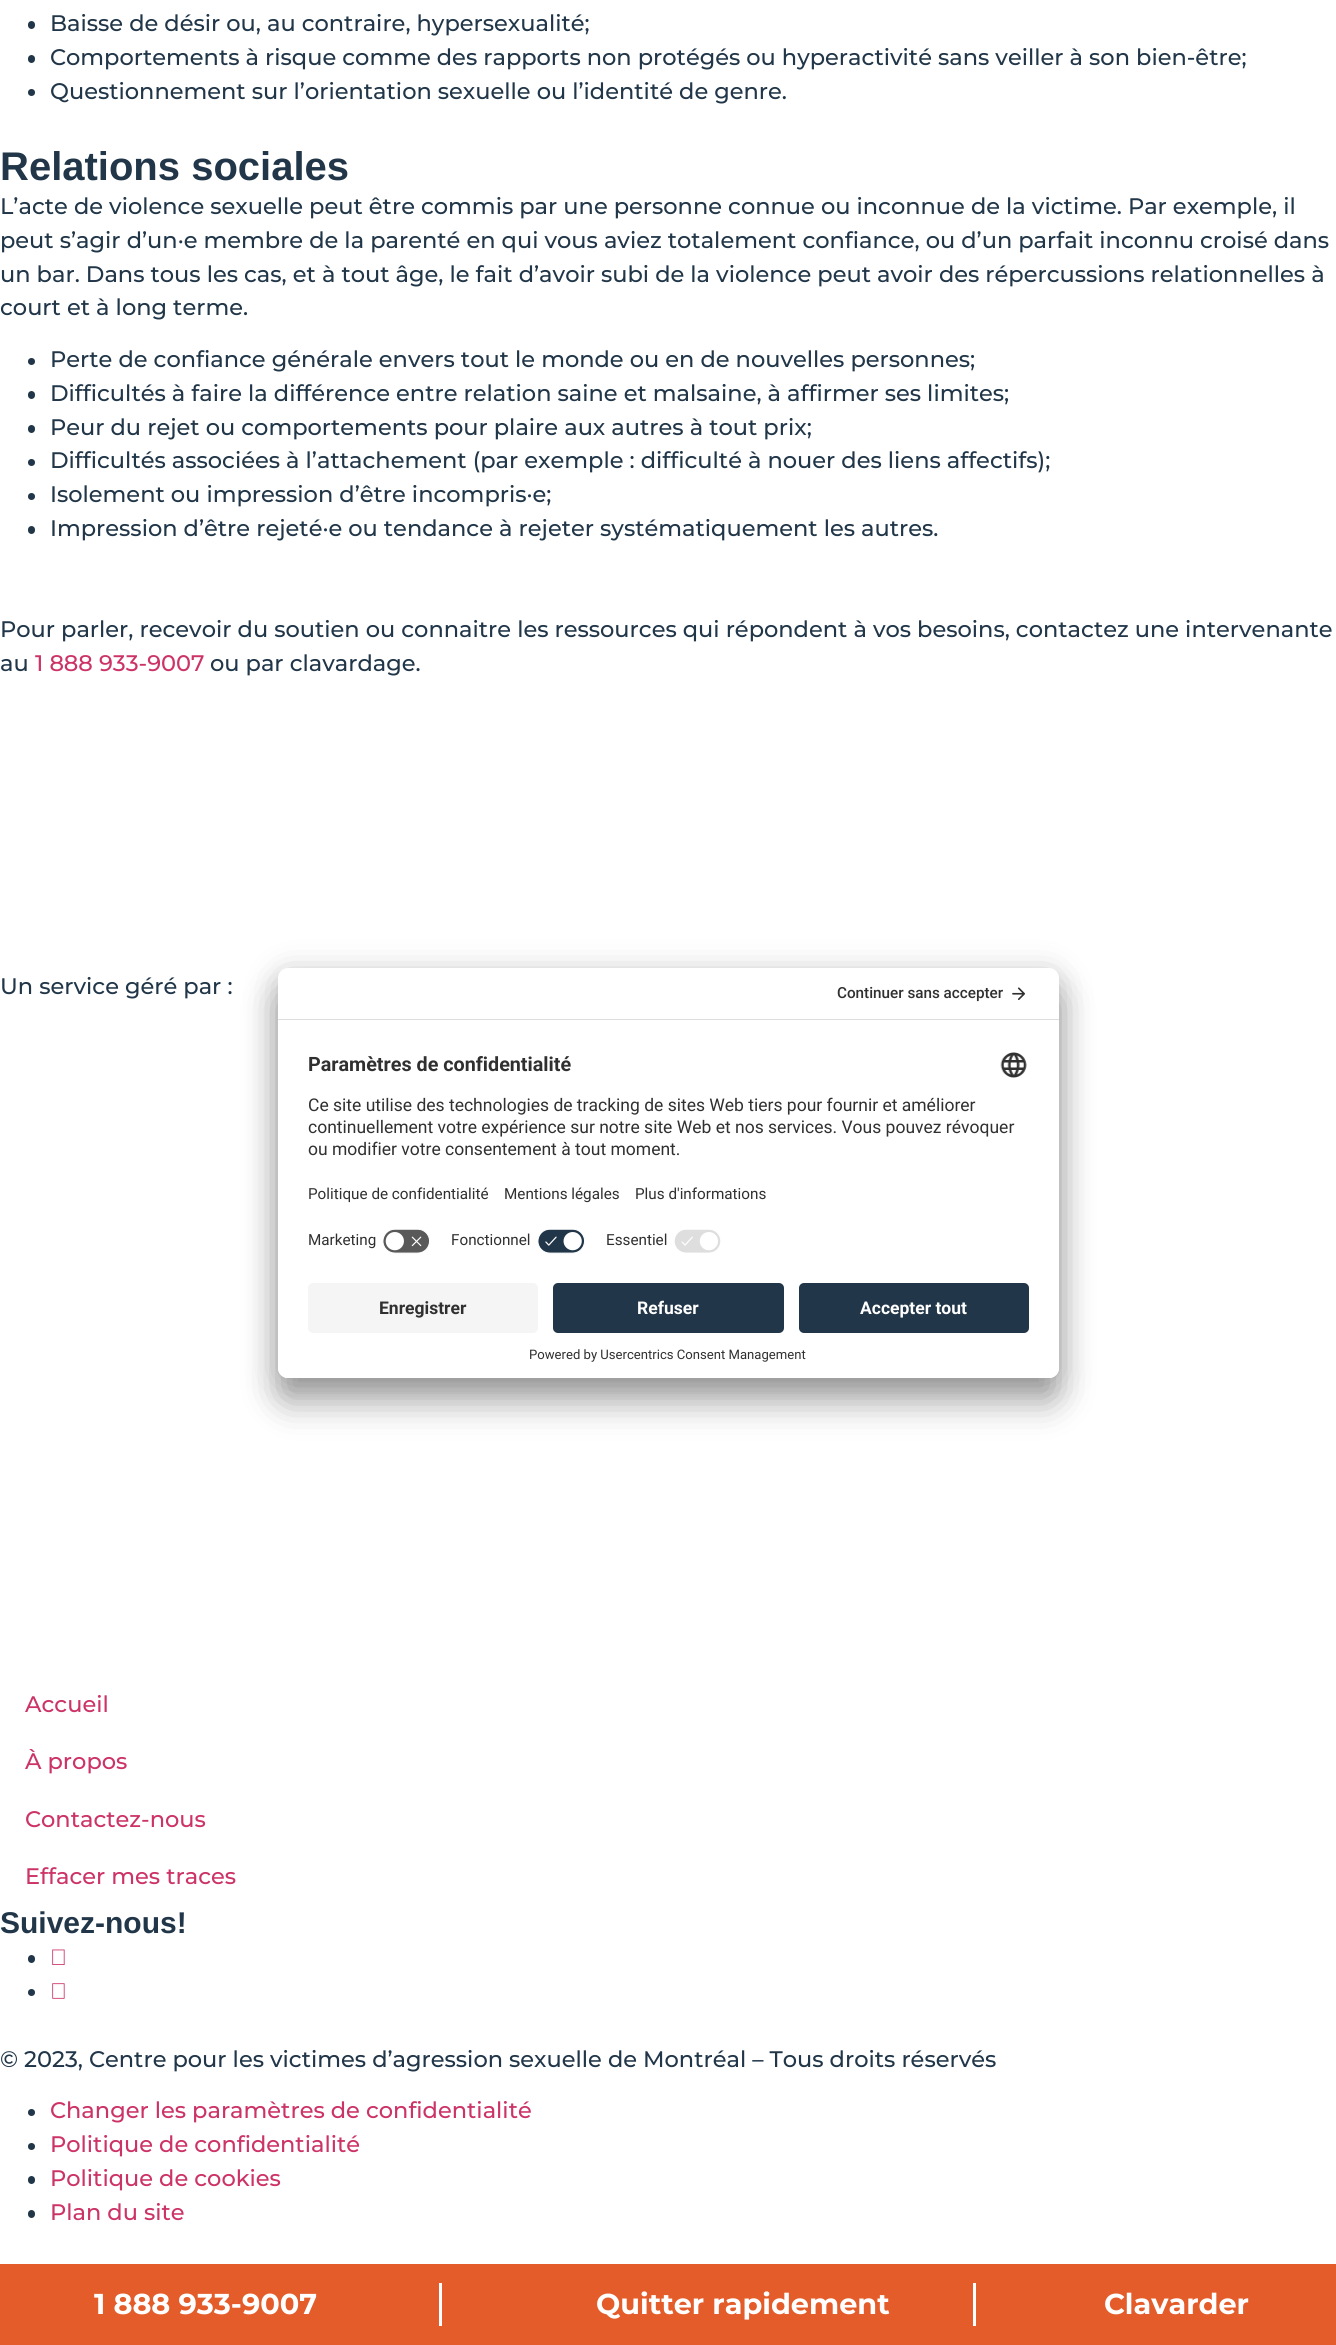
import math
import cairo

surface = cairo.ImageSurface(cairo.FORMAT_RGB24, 1336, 2345)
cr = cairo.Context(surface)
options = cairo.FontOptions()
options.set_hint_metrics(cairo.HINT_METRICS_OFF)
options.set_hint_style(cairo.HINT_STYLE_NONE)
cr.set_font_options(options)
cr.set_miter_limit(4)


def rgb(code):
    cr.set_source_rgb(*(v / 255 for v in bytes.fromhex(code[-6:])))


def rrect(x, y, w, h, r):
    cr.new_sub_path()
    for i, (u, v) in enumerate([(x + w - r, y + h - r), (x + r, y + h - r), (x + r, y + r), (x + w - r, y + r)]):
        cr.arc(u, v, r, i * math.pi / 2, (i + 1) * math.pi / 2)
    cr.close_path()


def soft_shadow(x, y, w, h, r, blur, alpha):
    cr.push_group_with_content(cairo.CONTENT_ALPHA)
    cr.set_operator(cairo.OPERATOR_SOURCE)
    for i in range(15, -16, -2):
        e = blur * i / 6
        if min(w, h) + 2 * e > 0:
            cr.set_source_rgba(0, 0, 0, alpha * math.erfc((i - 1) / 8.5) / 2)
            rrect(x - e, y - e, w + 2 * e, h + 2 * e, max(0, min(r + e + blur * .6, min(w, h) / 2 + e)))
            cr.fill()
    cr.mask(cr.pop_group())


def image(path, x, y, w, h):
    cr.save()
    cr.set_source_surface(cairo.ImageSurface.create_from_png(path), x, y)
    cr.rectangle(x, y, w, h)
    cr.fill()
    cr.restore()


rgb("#ffffff")
cr.paint()
rgb("#213648")
rrect(28, 21, 7, 8, 3.5)
cr.fill()
rrect(28, 55, 7, 8, 3.5)
cr.fill()
cr.arc(31.5, 92.5, 3.5, 0, 2 * math.pi)
cr.fill()
cr.arc(31.5, 361.5, 3.5, 0, 2 * math.pi)
cr.fill()
rrect(28, 391, 7, 8, 3.5)
cr.fill()
rrect(28, 425, 7, 8, 3.5)
cr.fill()
cr.arc(31.5, 462.5, 3.5, 0, 2 * math.pi)
cr.fill()
cr.arc(31.5, 496.5, 3.5, 0, 2 * math.pi)
cr.fill()
rrect(28, 526, 7, 8, 3.5)
cr.fill()
rrect(28, 1955, 7, 8, 3.5)
cr.fill()
image("img/1.png", 52, 1949, 13, 16)
cr.arc(31.5, 1992.5, 3.5, 0, 2 * math.pi)
cr.fill()
image("img/2.png", 52, 1983, 13, 16)
cr.arc(31.5, 2112.5, 3.5, 0, 2 * math.pi)
cr.fill()
cr.arc(31.5, 2146.5, 3.5, 0, 2 * math.pi)
cr.fill()
rrect(28, 2176, 7, 8, 3.5)
cr.fill()
rrect(28, 2210, 7, 8, 3.5)
cr.fill()
rgb("#000000")
soft_shadow(278, 993, 781, 410, 10, 17.5, 0.3)
soft_shadow(278, 974, 781, 410, 10, 16, 0.22)
rgb("#ffffff")
rrect(278, 968, 781, 410, 10)
cr.fill()
rgb("#dedede")
cr.rectangle(278, 1019, 781, 1)
cr.fill()
image("img/3.png", 1012, 987, 13, 13)
image("img/4.png", 1000, 1052, 27, 26)
image("img/5.png", 382, 1229, 48, 25)
image("img/6.png", 537, 1229, 48, 25)
image("img/7.png", 674, 1229, 47, 24)
rgb("#ffffff")
cr.new_path()
cr.move_to(278, 1273)
cr.line_to(1059, 1273)
cr.line_to(1059, 1368)
cr.curve_to(1059, 1373.5, 1054.5, 1378, 1049, 1378)
cr.line_to(288, 1378)
cr.curve_to(282.5, 1378, 278, 1373.5, 278, 1368)
cr.close_path()
cr.fill()
rgb("#f5f5f5")
rrect(308, 1283, 230, 50, 5)
cr.fill()
rgb("#213648")
rrect(553, 1283, 231, 50, 5)
cr.fill()
rrect(799, 1283, 230, 50, 5)
cr.fill()
for x, y, w, h, color in [
    (0, 2264, 1336, 81, "#e35c29"),
    (439, 2283, 3, 43, "#ffffff"),
    (973, 2283, 3, 43, "#ffffff"),
]:
    rgb(color)
    cr.rectangle(x, y, w, h)
    cr.fill()
cr.select_font_face("Montserrat Medium")
cr.set_font_size(22.5)
rgb("#213648")
for x, y, s in [
    (50, 31, "Baisse de désir ou, au contraire, hypersexualité;"),
    (50, 65, "Comportements à risque comme des rapports non protégés ou hyperactivité sans veiller à son bien-être;"),
    (50, 99, "Questionnement sur l’orientation sexuelle ou l’identité de genre."),
]:
    cr.move_to(x, y)
    cr.show_text(s)
cr.select_font_face("Liberation Sans", cairo.FONT_SLANT_NORMAL, cairo.FONT_WEIGHT_BOLD)
cr.set_font_size(40)
cr.move_to(0, 180)
cr.show_text("Relations sociales")
cr.select_font_face("Montserrat Medium")
cr.set_font_size(22.5)
for x, y, s in [
    (0, 214, "L’acte de violence sexuelle peut être commis par une personne connue ou inconnue de la victime. Par exemple, il"),
    (0, 248, "peut s’agir d’un·e membre de la parenté en qui vous aviez totalement confiance, ou d’un parfait inconnu croisé dans"),
    (0, 282, "un bar. Dans tous les cas, et à tout âge, le fait d’avoir subi de la violence peut avoir des répercussions relationnelles à"),
    (0, 315, "court et à long terme."),
    (50, 367, "Perte de confiance générale envers tout le monde ou en de nouvelles personnes;"),
    (50, 401, "Difficultés à faire la différence entre relation saine et malsaine, à affirmer ses limites;"),
    (50, 435, "Peur du rejet ou comportements pour plaire aux autres à tout prix;"),
    (50, 468, "Difficultés associées à l’attachement (par exemple : difficulté à nouer des liens affectifs);"),
    (50, 502, "Isolement ou impression d’être incompris·e;"),
    (50, 536, "Impression d’être rejeté·e ou tendance à rejeter systématiquement les autres."),
    (0, 637, "Pour parler, recevoir du soutien ou connaitre les ressources qui répondent à vos besoins, contactez une intervenante"),
    (0, 671, "au"),
]:
    cr.move_to(x, y)
    cr.show_text(s)
rgb("#cc3366")
cr.move_to(35, 671)
cr.show_text("1 888 933-9007")
rgb("#213648")
cr.move_to(210, 671)
cr.show_text("ou par clavardage.")
cr.move_to(0, 994)
cr.show_text("Un service géré par :")
rgb("#cc3366")
for x, y, s in [
    (25, 1712, "Accueil"),
    (25, 1769, "À propos"),
    (25, 1827, "Contactez-nous"),
    (25, 1884, "Effacer mes traces"),
]:
    cr.move_to(x, y)
    cr.show_text(s)
cr.select_font_face("Liberation Sans", cairo.FONT_SLANT_NORMAL, cairo.FONT_WEIGHT_BOLD)
cr.set_font_size(30)
rgb("#213648")
cr.move_to(0, 1933)
cr.show_text("Suivez-nous!")
cr.select_font_face("Montserrat Medium")
cr.set_font_size(22.5)
cr.move_to(0, 2067)
cr.show_text("© 2023, Centre pour les victimes d’agression sexuelle de Montréal – Tous droits réservés")
rgb("#cc3366")
for x, y, s in [
    (50, 2118, "Changer les paramètres de confidentialité"),
    (50, 2152, "Politique de confidentialité"),
    (50, 2186, "Politique de cookies"),
    (50, 2220, "Plan du site"),
]:
    cr.move_to(x, y)
    cr.show_text(s)
cr.select_font_face("Roboto Medium")
cr.set_font_size(15.25)
rgb("#303030")
cr.move_to(837, 998)
cr.show_text("Continuer sans accepter")
cr.select_font_face("Roboto", cairo.FONT_SLANT_NORMAL, cairo.FONT_WEIGHT_BOLD)
cr.set_font_size(19.75)
cr.move_to(308, 1071)
cr.show_text("Paramètres de confidentialité")
cr.select_font_face("Roboto")
cr.set_font_size(17.5)
for x, y, s in [
    (308, 1111, "Ce site utilise des technologies de tracking de sites Web tiers pour fournir et améliorer"),
    (308, 1133, "continuellement votre expérience sur notre site Web et nos services. Vous pouvez révoquer"),
    (308, 1155, "ou modifier votre consentement à tout moment."),
]:
    cr.move_to(x, y)
    cr.show_text(s)
cr.set_font_size(15.25)
for x, y, s in [
    (308, 1199, "Politique de confidentialité"),
    (504, 1199, "Mentions légales"),
    (635, 1199, "Plus d'informations"),
    (308, 1245, "Marketing"),
    (451, 1245, "Fonctionnel"),
    (606, 1245, "Essentiel"),
]:
    cr.move_to(x, y)
    cr.show_text(s)
cr.select_font_face("Roboto", cairo.FONT_SLANT_NORMAL, cairo.FONT_WEIGHT_BOLD)
cr.set_font_size(17.5)
cr.move_to(379, 1314)
cr.show_text("Enregistrer")
rgb("#ffffff")
cr.move_to(637, 1314)
cr.show_text("Refuser")
cr.move_to(860, 1314)
cr.show_text("Accepter tout")
cr.select_font_face("Roboto")
cr.set_font_size(13.1)
rgb("#303030")
cr.move_to(529, 1359)
cr.show_text("Powered by Usercentrics Consent Management")
cr.select_font_face("Montserrat", cairo.FONT_SLANT_NORMAL, cairo.FONT_WEIGHT_BOLD)
cr.set_font_size(28.75)
rgb("#ffffff")
for x, y, s in [
    (94, 2314, "1 888 933-9007"),
    (596, 2314, "Quitter rapidement"),
    (1104, 2314, "Clavarder"),
]:
    cr.move_to(x, y)
    cr.show_text(s)
surface.write_to_png("page.png")
